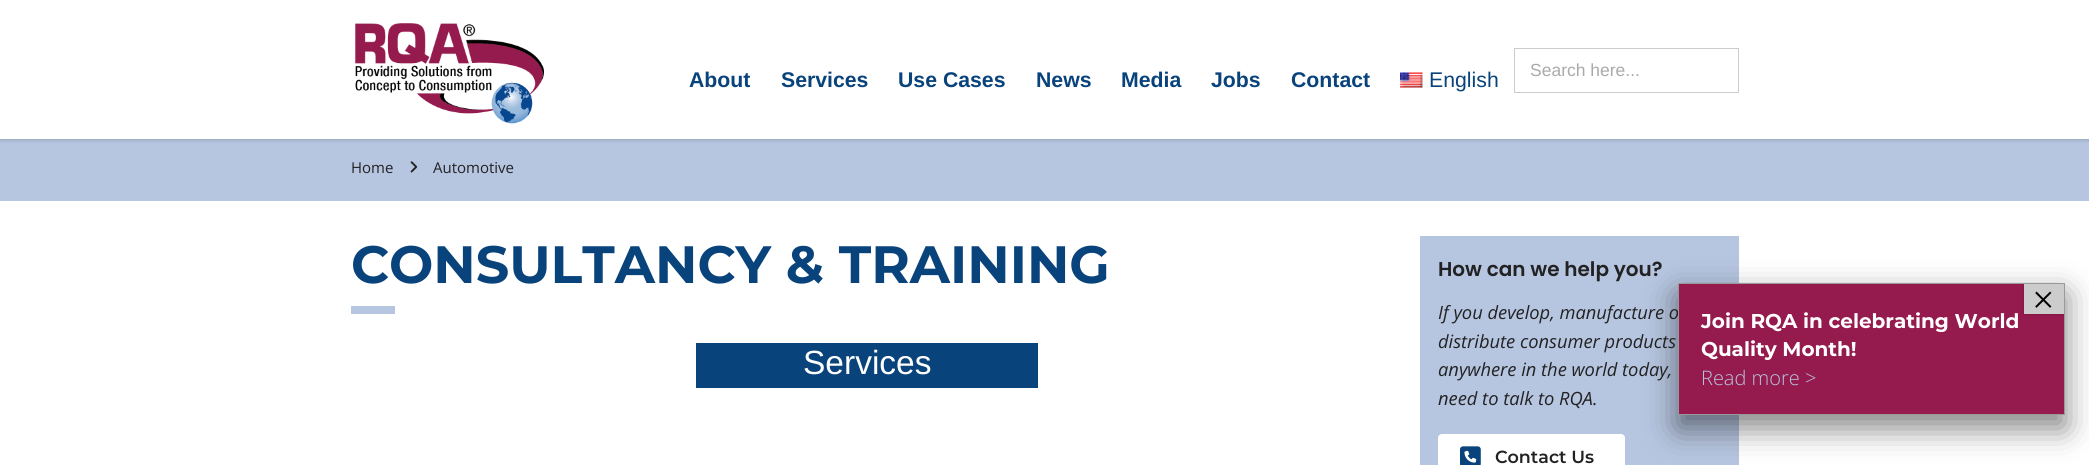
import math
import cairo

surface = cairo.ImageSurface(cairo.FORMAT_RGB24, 2089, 465)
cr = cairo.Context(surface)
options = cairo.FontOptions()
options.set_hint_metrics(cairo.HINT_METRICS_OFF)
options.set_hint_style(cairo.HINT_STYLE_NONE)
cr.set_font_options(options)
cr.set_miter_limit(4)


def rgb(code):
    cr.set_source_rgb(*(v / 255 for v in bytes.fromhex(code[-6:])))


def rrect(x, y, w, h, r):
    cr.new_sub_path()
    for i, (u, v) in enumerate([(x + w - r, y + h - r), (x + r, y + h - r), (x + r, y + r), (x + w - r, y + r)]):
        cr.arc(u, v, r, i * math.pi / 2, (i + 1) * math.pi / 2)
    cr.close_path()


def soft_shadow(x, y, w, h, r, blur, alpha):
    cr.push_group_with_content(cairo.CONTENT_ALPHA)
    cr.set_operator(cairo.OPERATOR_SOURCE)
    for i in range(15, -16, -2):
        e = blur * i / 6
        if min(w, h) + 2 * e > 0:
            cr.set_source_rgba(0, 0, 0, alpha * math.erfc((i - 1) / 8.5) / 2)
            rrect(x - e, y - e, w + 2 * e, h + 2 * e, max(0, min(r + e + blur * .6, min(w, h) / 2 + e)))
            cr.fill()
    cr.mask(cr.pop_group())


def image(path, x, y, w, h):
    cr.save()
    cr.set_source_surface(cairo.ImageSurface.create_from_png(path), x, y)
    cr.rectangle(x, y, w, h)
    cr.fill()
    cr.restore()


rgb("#ffffff")
cr.paint()
rgb("#b6c5e0")
cr.rectangle(0, 139, 2089, 62)
cr.fill()
cr.save()
cr.set_fill_rule(cairo.FILL_RULE_EVEN_ODD)
cr.new_path()
cr.move_to(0, 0)
cr.line_to(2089, 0)
cr.line_to(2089, 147)
cr.line_to(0, 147)
cr.close_path()
cr.move_to(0, 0)
cr.line_to(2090, 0)
cr.line_to(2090, 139)
cr.line_to(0, 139)
cr.close_path()
cr.clip()
rgb("#000000")
soft_shadow(0, 1, 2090, 139, 0, 2, 0.2)
cr.restore()
cr.set_source_rgba(1, 1, 1, 0.8)
cr.rectangle(0, 138, 2089, 1)
cr.fill()
image("img/1.png", 355, 23, 189, 101)
image("img/2.png", 1400, 72, 23, 16)
cr.rectangle(1514.5, 48.5, 224, 44)
rgb("#cccccc")
cr.set_line_width(1)
cr.stroke()
image("img/3.png", 410, 161, 8, 12)
for x, y, w, h, color in [
    (351, 306, 44, 8, "#b6c5e0"),
    (696, 343, 342, 45, "#09437b"),
    (1420, 236, 319, 229, "#b6c5e0"),
]:
    rgb(color)
    cr.rectangle(x, y, w, h)
    cr.fill()
rgb("#ffffff")
rrect(1440, 436, 183, 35, 2)
cr.fill_preserve()
cr.set_line_width(4)
cr.stroke()
image("img/4.png", 1460, 446, 21, 19)
rgb("#020202")
soft_shadow(1678, 295, 387, 133, 0, 15.5, 0.5)
cr.select_font_face("Liberation Sans", cairo.FONT_SLANT_NORMAL, cairo.FONT_WEIGHT_BOLD)
cr.set_font_size(21.25)
rgb("#09437b")
for x, y, s in [
    (689, 87, "About"),
    (781, 87, "Services"),
    (898, 87, "Use Cases"),
    (1036, 87, "News"),
    (1121, 87, "Media"),
    (1211, 87, "Jobs"),
    (1291, 87, "Contact"),
]:
    cr.move_to(x, y)
    cr.show_text(s)
cr.select_font_face("Liberation Sans")
cr.move_to(1429, 87)
cr.show_text("English")
cr.set_font_size(17.5)
rgb("#aaaaaa")
cr.move_to(1530, 76)
cr.show_text("Search here...")
cr.select_font_face("Open Sans")
cr.set_font_size(15)
rgb("#222222")
cr.move_to(351, 173)
cr.show_text("Home")
cr.move_to(433, 173)
cr.show_text("Automotive")
cr.select_font_face("Montserrat", cairo.FONT_SLANT_NORMAL, cairo.FONT_WEIGHT_BOLD)
cr.set_font_size(52.5)
rgb("#09437b")
cr.move_to(351, 283)
cr.show_text("CONSULTANCY & TRAINING")
cr.select_font_face("Liberation Sans")
cr.set_font_size(33.5)
rgb("#ffffff")
cr.move_to(803, 374)
cr.show_text("Services")
cr.select_font_face("Poppins SemiBold")
cr.set_font_size(20)
rgb("#222222")
cr.move_to(1438, 276)
cr.show_text("How can we help you?")
cr.select_font_face("Open Sans", cairo.FONT_SLANT_ITALIC)
cr.set_font_size(18.3)
for x, y, s in [
    (1438, 319, "If you develop, manufacture o"),
    (1438, 348, "distribute consumer products"),
    (1438, 376, "anywhere in the world today,"),
    (1438, 405, "need to talk to RQA."),
]:
    cr.move_to(x, y)
    cr.show_text(s)
cr.select_font_face("Montserrat SemiBold")
cr.set_font_size(17.5)
cr.move_to(1495, 463)
cr.show_text("Contact Us")
rgb("#951a4d")
cr.rectangle(1678.5, 283.5, 386, 131)
cr.fill_preserve()
rgb("#999999")
cr.set_line_width(1)
cr.stroke()
rgb("#020202")
soft_shadow(2023, 285, 40, 30, 0, 0.5, 0.1)
rgb("#cccccc")
cr.rectangle(2024, 284, 40, 30)
cr.fill()
cr.select_font_face("Liberation Serif")
cr.set_font_size(40)
rgb("#000000")
cr.move_to(2032, 313)
cr.show_text("×")
cr.select_font_face("Montserrat", cairo.FONT_SLANT_NORMAL, cairo.FONT_WEIGHT_BOLD)
cr.set_font_size(20)
rgb("#ffffff")
cr.move_to(1701, 328)
cr.show_text("Join RQA in celebrating World")
cr.move_to(1701, 356)
cr.show_text("Quality Month!")
cr.select_font_face("Open Sans Light")
rgb("#b6c5e0")
cr.move_to(1701, 385)
cr.show_text("Read more >")
surface.write_to_png("page.png")
